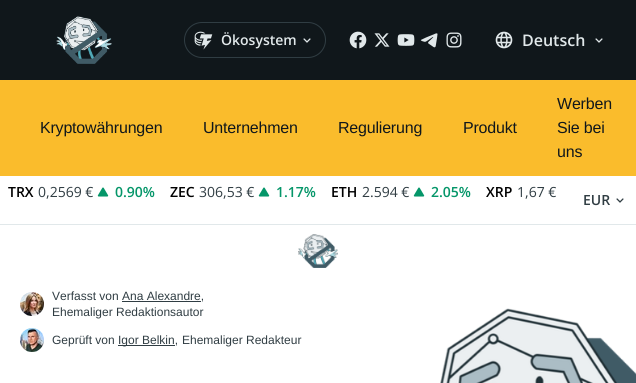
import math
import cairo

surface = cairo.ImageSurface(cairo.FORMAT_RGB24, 636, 383)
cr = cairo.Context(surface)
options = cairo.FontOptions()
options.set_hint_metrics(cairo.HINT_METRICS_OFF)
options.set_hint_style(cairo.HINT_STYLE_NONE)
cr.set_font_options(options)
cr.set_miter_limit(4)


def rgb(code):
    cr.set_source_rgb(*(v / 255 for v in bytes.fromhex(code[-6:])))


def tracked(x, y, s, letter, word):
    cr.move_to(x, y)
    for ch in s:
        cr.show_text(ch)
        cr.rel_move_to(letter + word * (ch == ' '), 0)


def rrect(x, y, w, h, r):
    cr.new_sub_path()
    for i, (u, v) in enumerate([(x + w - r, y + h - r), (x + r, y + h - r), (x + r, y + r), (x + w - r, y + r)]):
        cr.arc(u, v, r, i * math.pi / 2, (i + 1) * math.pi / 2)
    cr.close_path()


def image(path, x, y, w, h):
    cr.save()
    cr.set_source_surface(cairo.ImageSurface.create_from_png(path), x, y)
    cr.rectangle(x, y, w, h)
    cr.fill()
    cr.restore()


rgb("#ffffff")
cr.paint()
rgb("#10171b")
cr.rectangle(0, 0, 636, 80)
cr.fill()
image("img/1.png", 56, 16, 56, 48)
rrect(184.5, 22.5, 141, 35, 17.5)
rgb("#303d43")
cr.set_line_width(1)
cr.stroke()
image("img/2.png", 194, 31, 19, 19)
image("img/3.png", 303, 38, 8, 5)
image("img/4.png", 349, 31, 18, 18)
image("img/5.png", 374, 33, 16, 14)
image("img/6.png", 397, 34, 18, 12)
image("img/7.png", 420, 33, 18, 15)
image("img/8.png", 446, 32, 16, 16)
image("img/9.png", 495, 31, 18, 18)
image("img/3.png", 595, 38, 8, 5)
rgb("#fabc2c")
cr.rectangle(0, 80, 636, 96)
cr.fill()
rgb("#e1e8ea")
cr.rectangle(0, 224, 636, 1)
cr.fill()
image("img/10.png", 97, 187, 12, 10)
image("img/10.png", 258, 187, 12, 10)
image("img/10.png", 413, 187, 12, 10)
image("img/11.png", 616, 198, 8, 5)
image("img/12.png", 298, 234, 40, 34)
image("img/13.png", 20, 292, 24, 24)
rgb("#303d43")
cr.rectangle(122, 301, 79, 1)
cr.fill()
image("img/14.png", 20, 328, 24, 24)
cr.rectangle(118, 345, 57, 1)
cr.fill()
image("img/15.png", 440, 308, 196, 75)
cr.select_font_face("Open Sans SemiBold")
cr.set_font_size(14)
rgb("#e1e8ea")
cr.move_to(221, 45)
cr.show_text("Ökosystem")
cr.set_font_size(16)
cr.move_to(522, 46)
cr.show_text("Deutsch")
cr.select_font_face("Liberation Sans")
rgb("#10171b")
for x, y, s in [
    (40, 133, "Kryptowährungen"),
    (203, 133, "Unternehmen"),
    (338, 133, "Regulierung"),
    (463, 133, "Produkt"),
    (557, 109, "Werben"),
    (557, 133, "Sie bei"),
    (557, 157, "uns"),
]:
    tracked(x, y, s, -0.2, 0)
cr.select_font_face("Open Sans SemiBold")
cr.set_font_size(14)
rgb("#000000")
cr.move_to(8, 197)
cr.show_text("TRX")
cr.select_font_face("Open Sans")
rgb("#303d43")
cr.move_to(38, 197)
cr.show_text("0,2569 €")
cr.select_font_face("Open Sans SemiBold")
rgb("#059669")
cr.move_to(115, 197)
cr.show_text("0.90%")
rgb("#000000")
cr.move_to(170, 197)
cr.show_text("ZEC")
cr.select_font_face("Open Sans")
rgb("#303d43")
cr.move_to(199, 197)
cr.show_text("306,53 €")
cr.select_font_face("Open Sans SemiBold")
rgb("#059669")
cr.move_to(276, 197)
cr.show_text("1.17%")
rgb("#000000")
cr.move_to(331, 197)
cr.show_text("ETH")
cr.select_font_face("Open Sans")
rgb("#303d43")
cr.move_to(362, 197)
cr.show_text("2.594 €")
cr.select_font_face("Open Sans SemiBold")
rgb("#059669")
cr.move_to(431, 197)
cr.show_text("2.05%")
rgb("#000000")
cr.move_to(486, 197)
cr.show_text("XRP")
cr.select_font_face("Open Sans")
rgb("#303d43")
cr.move_to(517, 197)
cr.show_text("1,67 €")
cr.select_font_face("Open Sans SemiBold")
cr.move_to(583, 205)
cr.show_text("EUR")
cr.select_font_face("Liberation Sans")
cr.set_font_size(12)
for x, y, s in [
    (52, 300, "Verfasst von Ana Alexandre,"),
    (52, 316, "Ehemaliger Redaktionsautor"),
    (52, 344, "Geprüft von"),
    (118, 344, "Igor Belkin,"),
    (182, 344, "Ehemaliger Redakteur"),
]:
    cr.move_to(x, y)
    cr.show_text(s)
surface.write_to_png("page.png")
